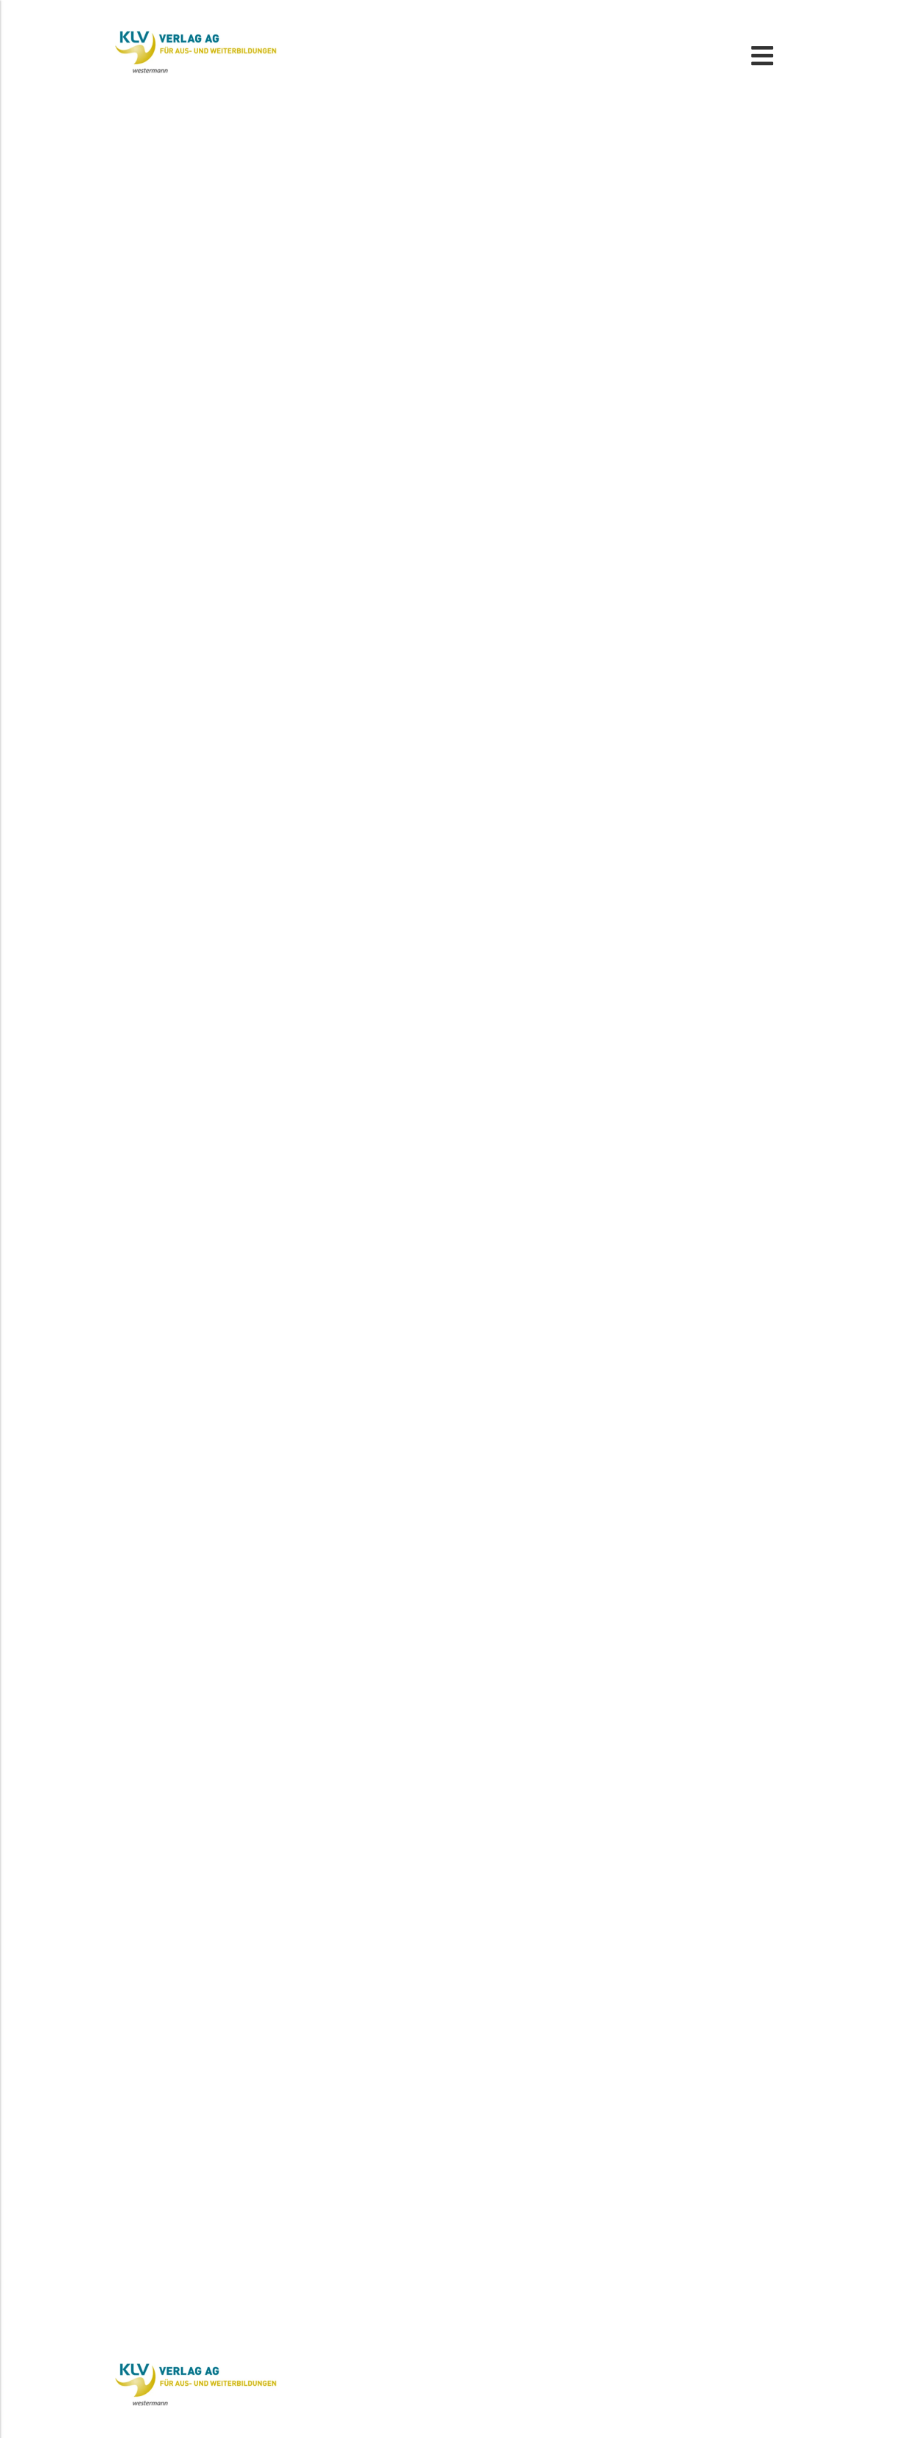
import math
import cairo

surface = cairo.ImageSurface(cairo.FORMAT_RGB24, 919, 2438)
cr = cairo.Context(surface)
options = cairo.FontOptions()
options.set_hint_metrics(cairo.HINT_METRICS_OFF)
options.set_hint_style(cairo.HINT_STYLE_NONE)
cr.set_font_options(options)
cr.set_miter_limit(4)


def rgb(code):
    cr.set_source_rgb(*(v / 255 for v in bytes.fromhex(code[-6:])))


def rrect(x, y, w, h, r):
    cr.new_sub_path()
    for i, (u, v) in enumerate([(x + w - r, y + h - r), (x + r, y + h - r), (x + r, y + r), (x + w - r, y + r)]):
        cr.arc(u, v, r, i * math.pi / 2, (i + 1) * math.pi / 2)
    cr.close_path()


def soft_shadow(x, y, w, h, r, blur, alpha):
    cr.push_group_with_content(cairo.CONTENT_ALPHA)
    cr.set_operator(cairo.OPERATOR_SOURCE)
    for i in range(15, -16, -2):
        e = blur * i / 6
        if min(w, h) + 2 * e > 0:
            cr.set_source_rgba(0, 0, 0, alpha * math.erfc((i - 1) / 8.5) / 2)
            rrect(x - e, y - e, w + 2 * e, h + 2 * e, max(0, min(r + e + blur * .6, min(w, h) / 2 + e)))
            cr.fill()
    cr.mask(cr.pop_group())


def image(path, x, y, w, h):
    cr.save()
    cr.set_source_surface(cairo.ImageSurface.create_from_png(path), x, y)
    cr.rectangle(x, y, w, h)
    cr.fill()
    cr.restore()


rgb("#ffffff")
cr.paint()
rgb("#000000")
soft_shadow(-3, 1, 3, 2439, 0, 1, 0.24)
soft_shadow(-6, 1, 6, 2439, 0, 2, 0.12)
image("img/1.png", 115, 30, 163, 44)
image("img/2.png", 751, 46, 23, 20)
image("img/3.png", 115, 2363, 163, 43)
surface.write_to_png("page.png")
